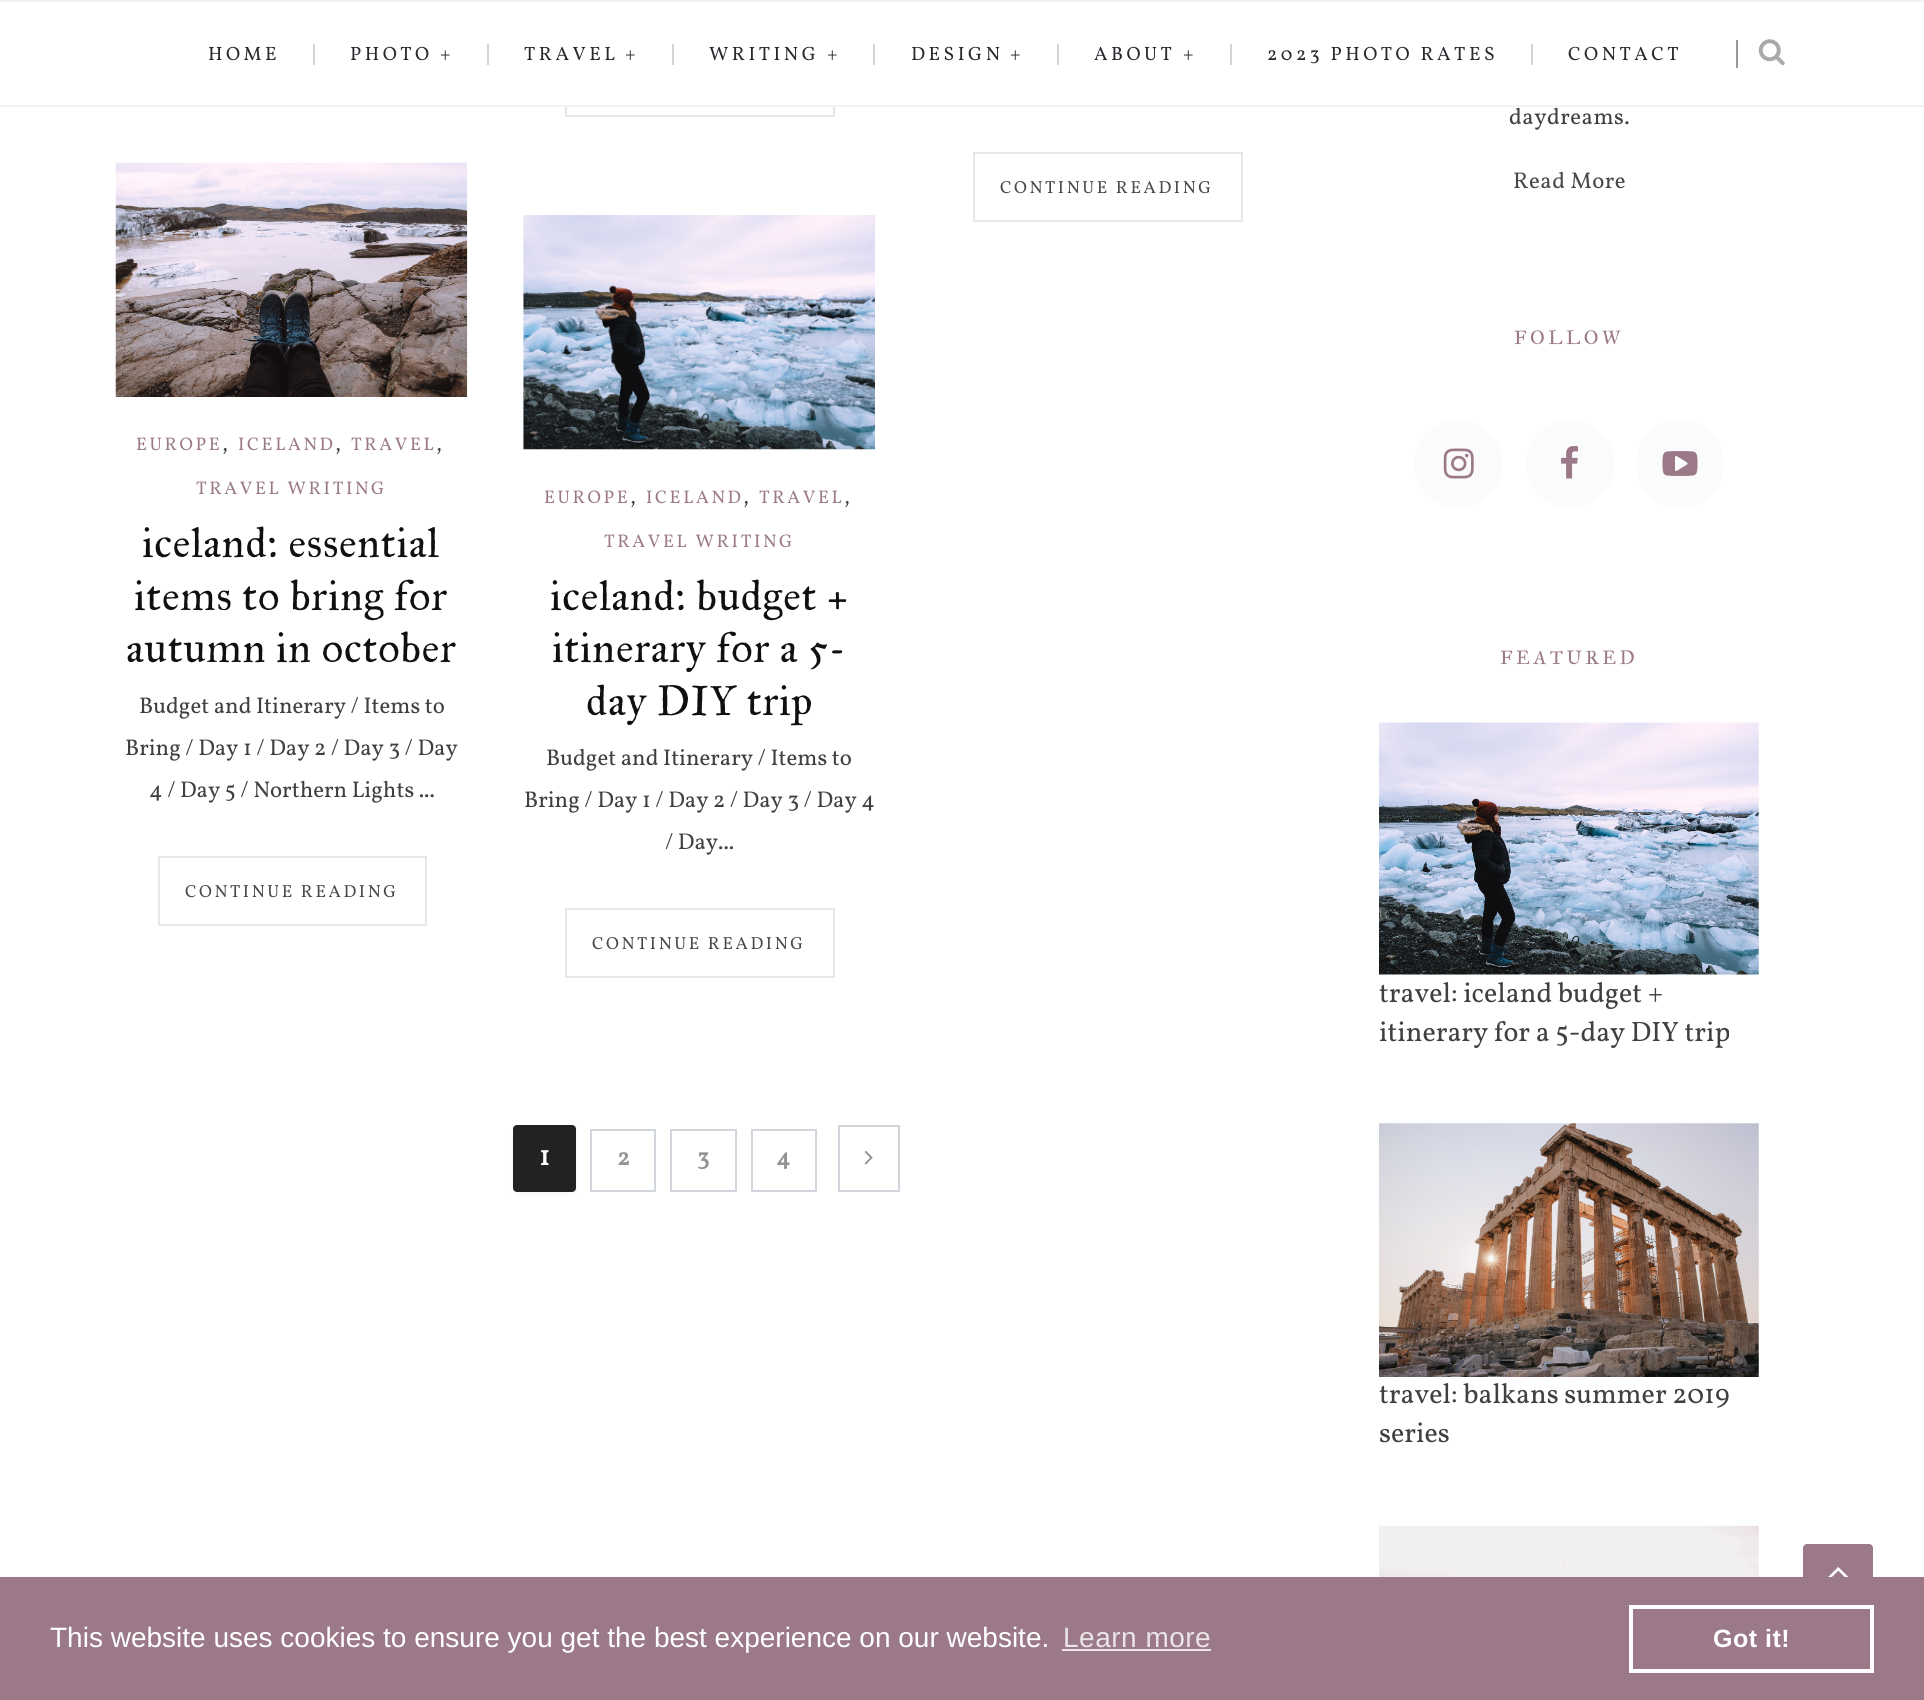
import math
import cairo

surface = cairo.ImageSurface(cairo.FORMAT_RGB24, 1924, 1700)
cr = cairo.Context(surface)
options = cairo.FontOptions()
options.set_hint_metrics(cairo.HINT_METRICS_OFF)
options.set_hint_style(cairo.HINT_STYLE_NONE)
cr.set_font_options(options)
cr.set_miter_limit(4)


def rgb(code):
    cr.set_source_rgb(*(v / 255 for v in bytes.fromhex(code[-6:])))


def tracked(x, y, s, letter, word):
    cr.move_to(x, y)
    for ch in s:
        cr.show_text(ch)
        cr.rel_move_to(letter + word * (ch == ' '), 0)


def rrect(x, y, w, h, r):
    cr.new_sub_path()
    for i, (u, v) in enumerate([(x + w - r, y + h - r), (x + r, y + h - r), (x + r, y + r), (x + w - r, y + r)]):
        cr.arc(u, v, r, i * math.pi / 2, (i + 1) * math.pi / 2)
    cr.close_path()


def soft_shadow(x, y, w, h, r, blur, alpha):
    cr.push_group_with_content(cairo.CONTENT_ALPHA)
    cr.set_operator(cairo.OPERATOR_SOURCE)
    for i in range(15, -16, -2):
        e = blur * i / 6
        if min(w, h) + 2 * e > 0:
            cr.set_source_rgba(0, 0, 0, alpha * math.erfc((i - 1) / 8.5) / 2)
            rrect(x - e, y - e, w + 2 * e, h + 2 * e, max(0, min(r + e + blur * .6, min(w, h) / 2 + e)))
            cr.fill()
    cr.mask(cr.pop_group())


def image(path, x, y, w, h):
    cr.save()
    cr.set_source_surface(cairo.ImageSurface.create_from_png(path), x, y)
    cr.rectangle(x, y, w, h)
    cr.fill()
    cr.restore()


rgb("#ffffff")
cr.paint()
cr.rectangle(566, 48, 268, 68)
rgb("#e7e7e7")
cr.stroke()
for x, y, w, h, color in [
    (565, 47, 270, 58, "#ffffff"),
    (0, 0, 1924, 2, "#f2f2f2"),
    (0, 105, 1924, 2, "#f2f2f2"),
    (313, 44, 2, 21, "#d4d4d5"),
    (487, 44, 2, 21, "#d4d4d5"),
    (672, 44, 2, 21, "#d4d4d5"),
    (873, 44, 2, 21, "#d4d4d5"),
    (1057, 44, 2, 21, "#d4d4d5"),
    (1230, 44, 2, 21, "#d4d4d5"),
    (1531, 44, 2, 21, "#d4d4d5"),
    (1736, 40, 2, 28, "#999999"),
]:
    rgb(color)
    cr.rectangle(x, y, w, h)
    cr.fill()
image("img/1.png", 1758, 39, 27, 27)
cr.rectangle(974, 153, 268, 68)
rgb("#e7e7e7")
cr.stroke()
image("img/2.png", 115, 162, 353, 235)
cr.rectangle(159, 857, 267, 68)
cr.stroke()
image("img/3.png", 523, 215, 352, 235)
cr.rectangle(566, 909, 268, 68)
cr.stroke()
rgb("#000000")
soft_shadow(513, 1127, 63, 67, 4, 2.5, 0.04)
rgb("#222222")
rrect(514, 1126, 61, 65, 3)
cr.fill_preserve()
cr.stroke()
cr.rectangle(591, 1130, 64, 61)
rgb("#d1d7dc")
cr.stroke()
cr.rectangle(671, 1130, 65, 61)
cr.stroke()
cr.rectangle(752, 1130, 64, 61)
cr.stroke()
cr.rectangle(839, 1126, 60, 65)
cr.stroke()
image("img/4.png", 864, 1150, 9, 15)
rgb("#fbfbfb")
cr.arc(1458, 464, 44, 0, 2 * math.pi)
cr.fill()
image("img/5.png", 1443, 448, 31, 31)
cr.arc(1570, 464, 44, 0, 2 * math.pi)
cr.fill()
image("img/6.png", 1561, 446, 17, 33)
cr.arc(1680, 464, 44, 0, 2 * math.pi)
cr.fill()
image("img/7.png", 1662, 451, 36, 25)
image("img/8.png", 1379, 722, 380, 253)
image("img/9.png", 1379, 1123, 380, 254)
image("img/10.png", 1379, 1525, 380, 52)
rgb("#9b7989")
rrect(1803, 1544, 70, 70, 4)
cr.fill()
image("img/11.png", 1828, 1567, 20, 10)
cr.rectangle(0, 1577, 1924, 123)
cr.fill()
rgb("#ebe4e7")
cr.rectangle(1062, 1649, 149, 2)
cr.fill()
cr.rectangle(1631, 1607, 241, 64)
rgb("#ffffff")
cr.set_line_width(4)
cr.stroke()
cr.select_font_face("Vollkorn")
cr.set_font_size(19.25)
rgb("#28292e")
for x, y, s in [
    (208, 60, "HOME"),
    (350, 60, "PHOTO"),
    (440, 60, "+"),
    (524, 60, "TRAVEL"),
    (625, 60, "+"),
    (709, 60, "WRITING"),
    (827, 60, "+"),
    (911, 60, "DESIGN"),
    (1010, 60, "+"),
    (1094, 60, "ABOUT"),
    (1183, 60, "+"),
    (1267, 60, "2023 PHOTO RATES"),
    (1568, 60, "CONTACT"),
]:
    tracked(x, y, s, 3.5, 0)
cr.set_font_size(17.5)
rgb("#484848")
tracked(1000, 193, "CONTINUE READING", 2.6, 0)
cr.set_font_size(18.25)
rgb("#9b7989")
tracked(136, 450, "EUROPE", 2.6, 0)
cr.set_font_size(22.75)
rgb("#404040")
cr.move_to(222, 450)
cr.show_text(",")
cr.set_font_size(18.25)
rgb("#9b7989")
tracked(238, 450, "ICELAND", 2.6, 0)
cr.set_font_size(22.75)
rgb("#404040")
cr.move_to(335, 450)
cr.show_text(",")
cr.set_font_size(18.25)
rgb("#9b7989")
tracked(351, 450, "TRAVEL", 2.6, 0)
cr.set_font_size(22.75)
rgb("#404040")
cr.move_to(436, 450)
cr.show_text(",")
cr.set_font_size(18.25)
rgb("#9b7989")
tracked(196, 494, "TRAVEL WRITING", 2.6, 0)
cr.select_font_face("IM FELL Great Primer")
cr.set_font_size(42)
rgb("#101010")
for x, y, s in [
    (142, 557, "iceland: essential"),
    (134, 610, "items to bring for"),
    (126, 662, "autumn in october"),
]:
    tracked(x, y, s, 0.8, 0)
cr.select_font_face("Vollkorn")
cr.set_font_size(22.75)
rgb("#404040")
for x, y, s in [
    (139, 713, "Budget and Itinerary / Items to"),
    (125, 755, "Bring / Day 1 / Day 2 / Day 3 / Day"),
    (149, 797, "4 / Day 5 / Northern Lights ..."),
]:
    cr.move_to(x, y)
    cr.show_text(s)
cr.set_font_size(17.5)
rgb("#484848")
tracked(185, 897, "CONTINUE READING", 2.6, 0)
cr.set_font_size(18.25)
rgb("#9b7989")
tracked(544, 503, "EUROPE", 2.6, 0)
cr.set_font_size(22.75)
rgb("#404040")
cr.move_to(630, 503)
cr.show_text(",")
cr.set_font_size(18.25)
rgb("#9b7989")
tracked(646, 503, "ICELAND", 2.6, 0)
cr.set_font_size(22.75)
rgb("#404040")
cr.move_to(743, 503)
cr.show_text(",")
cr.set_font_size(18.25)
rgb("#9b7989")
tracked(759, 503, "TRAVEL", 2.6, 0)
cr.set_font_size(22.75)
rgb("#404040")
cr.move_to(844, 503)
cr.show_text(",")
cr.set_font_size(18.25)
rgb("#9b7989")
tracked(604, 547, "TRAVEL WRITING", 2.6, 0)
cr.select_font_face("IM FELL Great Primer")
cr.set_font_size(42)
rgb("#101010")
for x, y, s in [
    (550, 610, "iceland: budget +"),
    (552, 662, "itinerary for a 5-"),
    (586, 715, "day DIY trip"),
]:
    tracked(x, y, s, 0.8, 0)
cr.select_font_face("Vollkorn")
cr.set_font_size(22.75)
rgb("#404040")
for x, y, s in [
    (546, 765, "Budget and Itinerary / Items to"),
    (524, 807, "Bring / Day 1 / Day 2 / Day 3 / Day 4"),
    (665, 849, "/ Day..."),
]:
    cr.move_to(x, y)
    cr.show_text(s)
cr.set_font_size(17.5)
rgb("#484848")
tracked(592, 949, "CONTINUE READING", 2.6, 0)
cr.select_font_face("Vollkorn", cairo.FONT_SLANT_NORMAL, cairo.FONT_WEIGHT_BOLD)
cr.set_font_size(28)
rgb("#ffffff")
cr.move_to(539, 1165)
cr.show_text("1")
cr.set_font_size(24)
rgb("#919394")
for x, y, s in [
    (617, 1165, "2"),
    (697, 1165, "3"),
    (776, 1165, "4"),
]:
    cr.move_to(x, y)
    cr.show_text(s)
cr.select_font_face("Vollkorn")
cr.set_font_size(22.75)
rgb("#404040")
tracked(1509, 124, "daydreams.", 0.5, 0)
rgb("#484848")
tracked(1513, 188, "Read More", 0.5, 0)
cr.select_font_face("IM FELL Great Primer")
cr.set_font_size(19.25)
rgb("#9b7989")
tracked(1514, 344, "FOLLOW", 3.5, 0)
tracked(1500, 664, "FEATURED", 3.5, 0)
cr.select_font_face("Vollkorn")
cr.set_font_size(28)
rgb("#404040")
for x, y, s in [
    (1379, 1002, "travel: iceland budget +"),
    (1379, 1041, "itinerary for a 5-day DIY trip"),
    (1379, 1403, "travel: balkans summer 2019"),
    (1379, 1442, "series"),
]:
    cr.move_to(x, y)
    cr.show_text(s)
cr.select_font_face("Liberation Sans")
rgb("#ffffff")
cr.move_to(50, 1647)
cr.show_text("This website uses cookies to ensure you get the best experience on our website.")
rgb("#ebe4e7")
tracked(1063, 1647, "Learn more", 0.5, 0)
cr.select_font_face("Liberation Sans", cairo.FONT_SLANT_NORMAL, cairo.FONT_WEIGHT_BOLD)
cr.set_font_size(25)
rgb("#ffffff")
tracked(1713, 1647, "Got it!", 0.5, 0)
surface.write_to_png("page.png")
